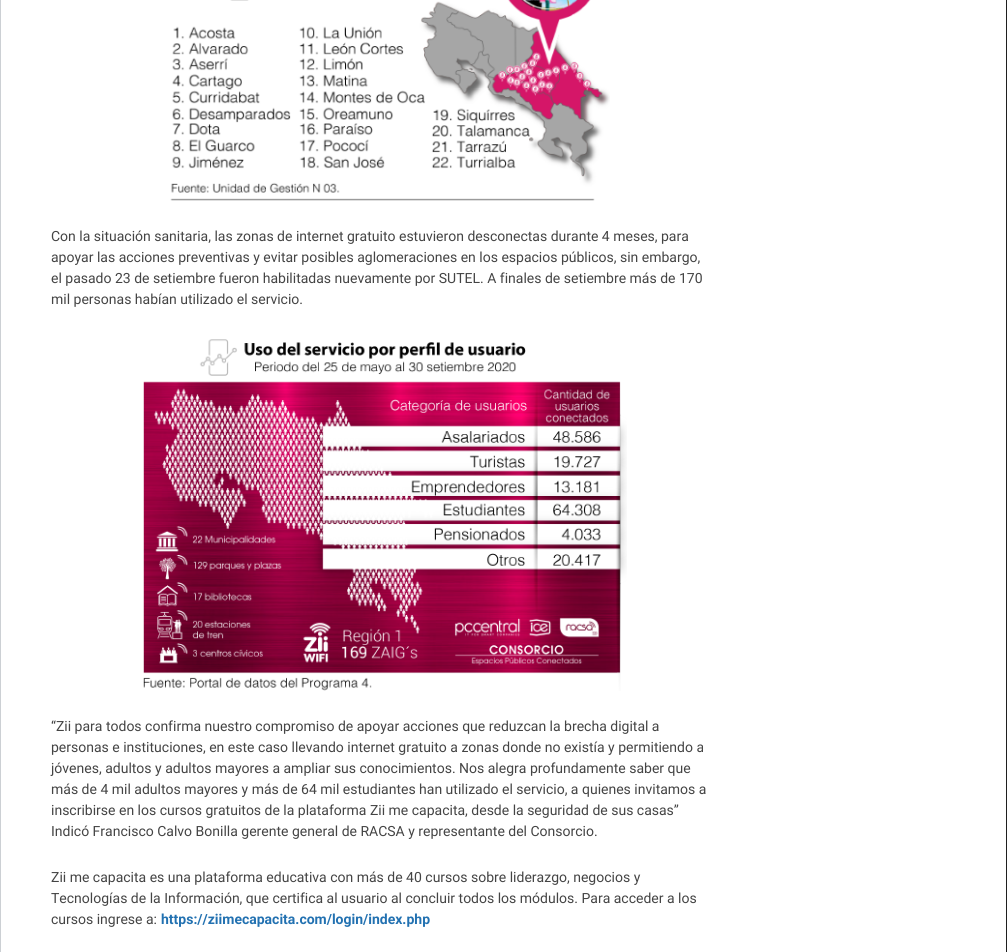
import math
import cairo

surface = cairo.ImageSurface(cairo.FORMAT_RGB24, 1007, 952)
cr = cairo.Context(surface)
options = cairo.FontOptions()
options.set_hint_metrics(cairo.HINT_METRICS_OFF)
options.set_hint_style(cairo.HINT_STYLE_NONE)
cr.set_font_options(options)
cr.set_miter_limit(4)


def rgb(code):
    cr.set_source_rgb(*(v / 255 for v in bytes.fromhex(code[-6:])))


def image(path, x, y, w, h):
    cr.save()
    cr.set_source_surface(cairo.ImageSurface.create_from_png(path), x, y)
    cr.rectangle(x, y, w, h)
    cr.fill()
    cr.restore()


rgb("#ffffff")
cr.paint()
cr.rectangle(0.5, -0.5, 1006, 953)
rgb("#ccd0d4")
cr.set_line_width(1)
cr.stroke()
image("img/1.png", 170, 0, 440, 201)
image("img/2.png", 143, 339, 484, 352)
rgb("#1f1f1f")
cr.rectangle(1006, 0, 1, 952)
cr.fill()
cr.select_font_face("Roboto")
cr.set_font_size(14)
rgb("#444444")
for x, y, s in [
    (51, 241, "Con la situación sanitaria, las zonas de internet gratuito estuvieron desconectas durante 4 meses, para"),
    (51, 262, "apoyar las acciones preventivas y evitar posibles aglomeraciones en los espacios públicos, sin embargo,"),
    (51, 283, "el pasado 23 de setiembre fueron habilitadas nuevamente por SUTEL. A finales de setiembre más de 170"),
    (51, 304, "mil personas habían utilizado el servicio."),
    (51, 731, "“Zii para todos confirma nuestro compromiso de apoyar acciones que reduzcan la brecha digital a"),
    (51, 752, "personas e instituciones, en este caso llevando internet gratuito a zonas donde no existía y permitiendo a"),
    (51, 773, "jóvenes, adultos y adultos mayores a ampliar sus conocimientos. Nos alegra profundamente saber que"),
    (51, 794, "más de 4 mil adultos mayores y más de 64 mil estudiantes han utilizado el servicio, a quienes invitamos a"),
    (51, 815, "inscribirse en los cursos gratuitos de la plataforma Zii me capacita, desde la seguridad de sus casas”"),
    (51, 836, "Indicó Francisco Calvo Bonilla gerente general de RACSA y representante del Consorcio."),
    (51, 882, "Zii me capacita es una plataforma educativa con más de 40 cursos sobre liderazgo, negocios y"),
    (51, 903, "Tecnologías de la Información, que certifica al usuario al concluir todos los módulos. Para acceder a los"),
    (51, 924, "cursos ingrese a:"),
]:
    cr.move_to(x, y)
    cr.show_text(s)
cr.select_font_face("Roboto", cairo.FONT_SLANT_NORMAL, cairo.FONT_WEIGHT_BOLD)
rgb("#2271b1")
cr.move_to(161, 924)
cr.show_text("https://ziimecapacita.com/login/index.php")
surface.write_to_png("page.png")
